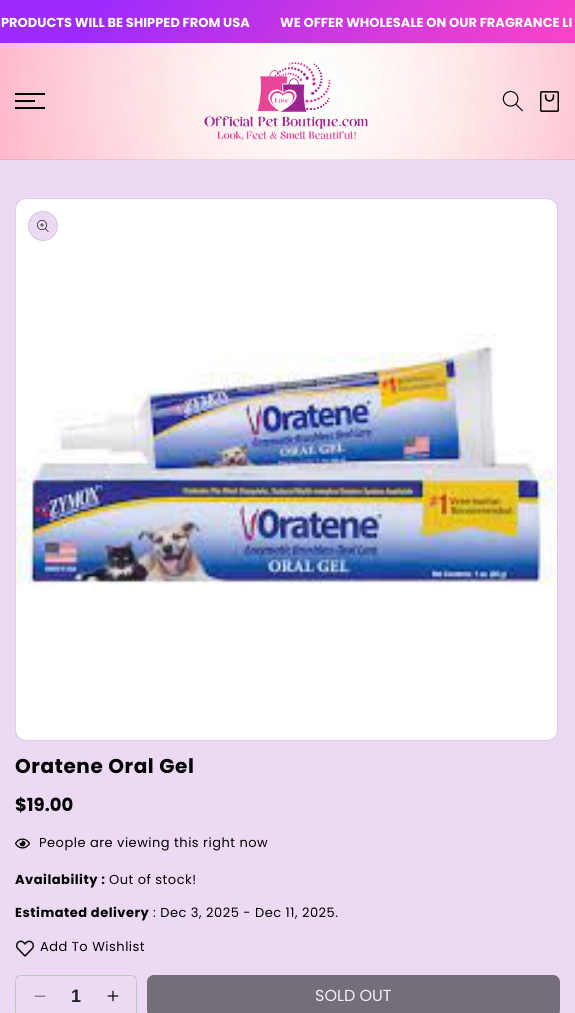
import math
import cairo

surface = cairo.ImageSurface(cairo.FORMAT_RGB24, 575, 1013)
cr = cairo.Context(surface)
options = cairo.FontOptions()
options.set_hint_metrics(cairo.HINT_METRICS_OFF)
options.set_hint_style(cairo.HINT_STYLE_NONE)
cr.set_font_options(options)
cr.set_miter_limit(4)


def rgb(code):
    cr.set_source_rgb(*(v / 255 for v in bytes.fromhex(code[-6:])))


def tracked(x, y, s, letter, word):
    cr.move_to(x, y)
    for ch in s:
        cr.show_text(ch)
        cr.rel_move_to(letter + word * (ch == ' '), 0)


def rrect(x, y, w, h, r):
    cr.new_sub_path()
    for i, (u, v) in enumerate([(x + w - r, y + h - r), (x + r, y + h - r), (x + r, y + r), (x + w - r, y + r)]):
        cr.arc(u, v, r, i * math.pi / 2, (i + 1) * math.pi / 2)
    cr.close_path()


def image(path, x, y, w, h):
    cr.save()
    cr.set_source_surface(cairo.ImageSurface.create_from_png(path), x, y)
    cr.rectangle(x, y, w, h)
    cr.fill()
    cr.restore()


rgb("#ecdaf5")
cr.paint()
gradient = cairo.LinearGradient(-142, 195, 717, 818)
gradient.add_color_stop_rgba(0.08, 0.616, 0.169, 0.988, 1)
gradient.add_color_stop_rgba(0.47, 0.992, 0.267, 0.776, 1)
gradient.add_color_stop_rgba(0.83, 0.855, 0.494, 0.992, 1)
cr.set_source(gradient)
cr.rectangle(0, 0, 575, 43)
cr.fill()
image("img/1.png", 0, 43, 575, 117)
cr.set_source_rgba(0, 0, 0, 0.08)
cr.rectangle(0, 159, 575, 1)
cr.fill()
rgb("#000000")
cr.rectangle(15, 93, 30, 2)
cr.rectangle(15, 100, 20, 2)
cr.rectangle(15, 107, 30, 2)
cr.fill()
image("img/2.png", 204, 62, 164, 79)
image("img/3.png", 502, 90, 21, 22)
image("img/4.png", 540, 91, 19, 21)
rrect(15.5, 198.5, 542, 542, 9.5)
rgb("#e0cfe9")
cr.set_line_width(1)
cr.stroke()
image("img/5.png", 16, 199, 541, 541)
rgb("#ecdaf5")
cr.arc(43, 226, 15, 0, 2 * math.pi)
cr.fill()
cr.arc(43, 226, 14.5, 0, 2 * math.pi)
cr.set_source_rgba(0, 0, 0, 0.1)
cr.stroke()
image("img/6.png", 37, 220, 12, 12)
image("img/7.png", 15, 838, 15, 11)
image("img/8.png", 15, 940, 19, 17)
rrect(15.5, 975.5, 121, 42, 5.5)
rgb("#c3c3c3")
cr.stroke()
image("img/9.png", 34, 995, 12, 2)
image("img/10.png", 107, 990, 12, 12)
rgb("#766d7b")
rrect(147, 975, 413, 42, 7)
cr.fill()
cr.select_font_face("Poppins", cairo.FONT_SLANT_NORMAL, cairo.FONT_WEIGHT_BOLD)
cr.set_font_size(13)
rgb("#ffffff")
cr.move_to(1, 27)
cr.show_text("PRODUCTS WILL BE SHIPPED FROM USA")
cr.move_to(280, 27)
cr.show_text("WE OFFER WHOLESALE ON OUR FRAGRANCE LI")
cr.set_font_size(20)
rgb("#000000")
tracked(15, 773, "Oratene Oral Gel", 0.6, 0)
cr.set_font_size(18)
cr.move_to(15, 811)
cr.show_text("$19.00")
cr.select_font_face("Poppins")
cr.set_font_size(13)
tracked(39, 847, "People are viewing this right now", 0.5, 0)
cr.select_font_face("Poppins", cairo.FONT_SLANT_NORMAL, cairo.FONT_WEIGHT_BOLD)
tracked(15, 884, "Availability :", 0.5, 0)
cr.select_font_face("Poppins")
tracked(109, 884, "Out of stock!", 0.5, 0)
cr.select_font_face("Poppins", cairo.FONT_SLANT_NORMAL, cairo.FONT_WEIGHT_BOLD)
tracked(15, 917, "Estimated delivery", 0.5, 0)
cr.select_font_face("Poppins")
tracked(153, 917, ": Dec 3, 2025 - Dec 11, 2025.", 0.5, 0)
tracked(40, 951, "Add To Wishlist", 0.5, 0)
cr.select_font_face("Liberation Sans", cairo.FONT_SLANT_NORMAL, cairo.FONT_WEIGHT_BOLD)
cr.set_font_size(18)
rgb("#232125")
cr.move_to(71, 1002)
cr.show_text("1")
cr.select_font_face("Poppins")
cr.set_font_size(16)
rgb("#f6edfa")
cr.move_to(315, 1001)
cr.show_text("SOLD OUT")
surface.write_to_png("page.png")
